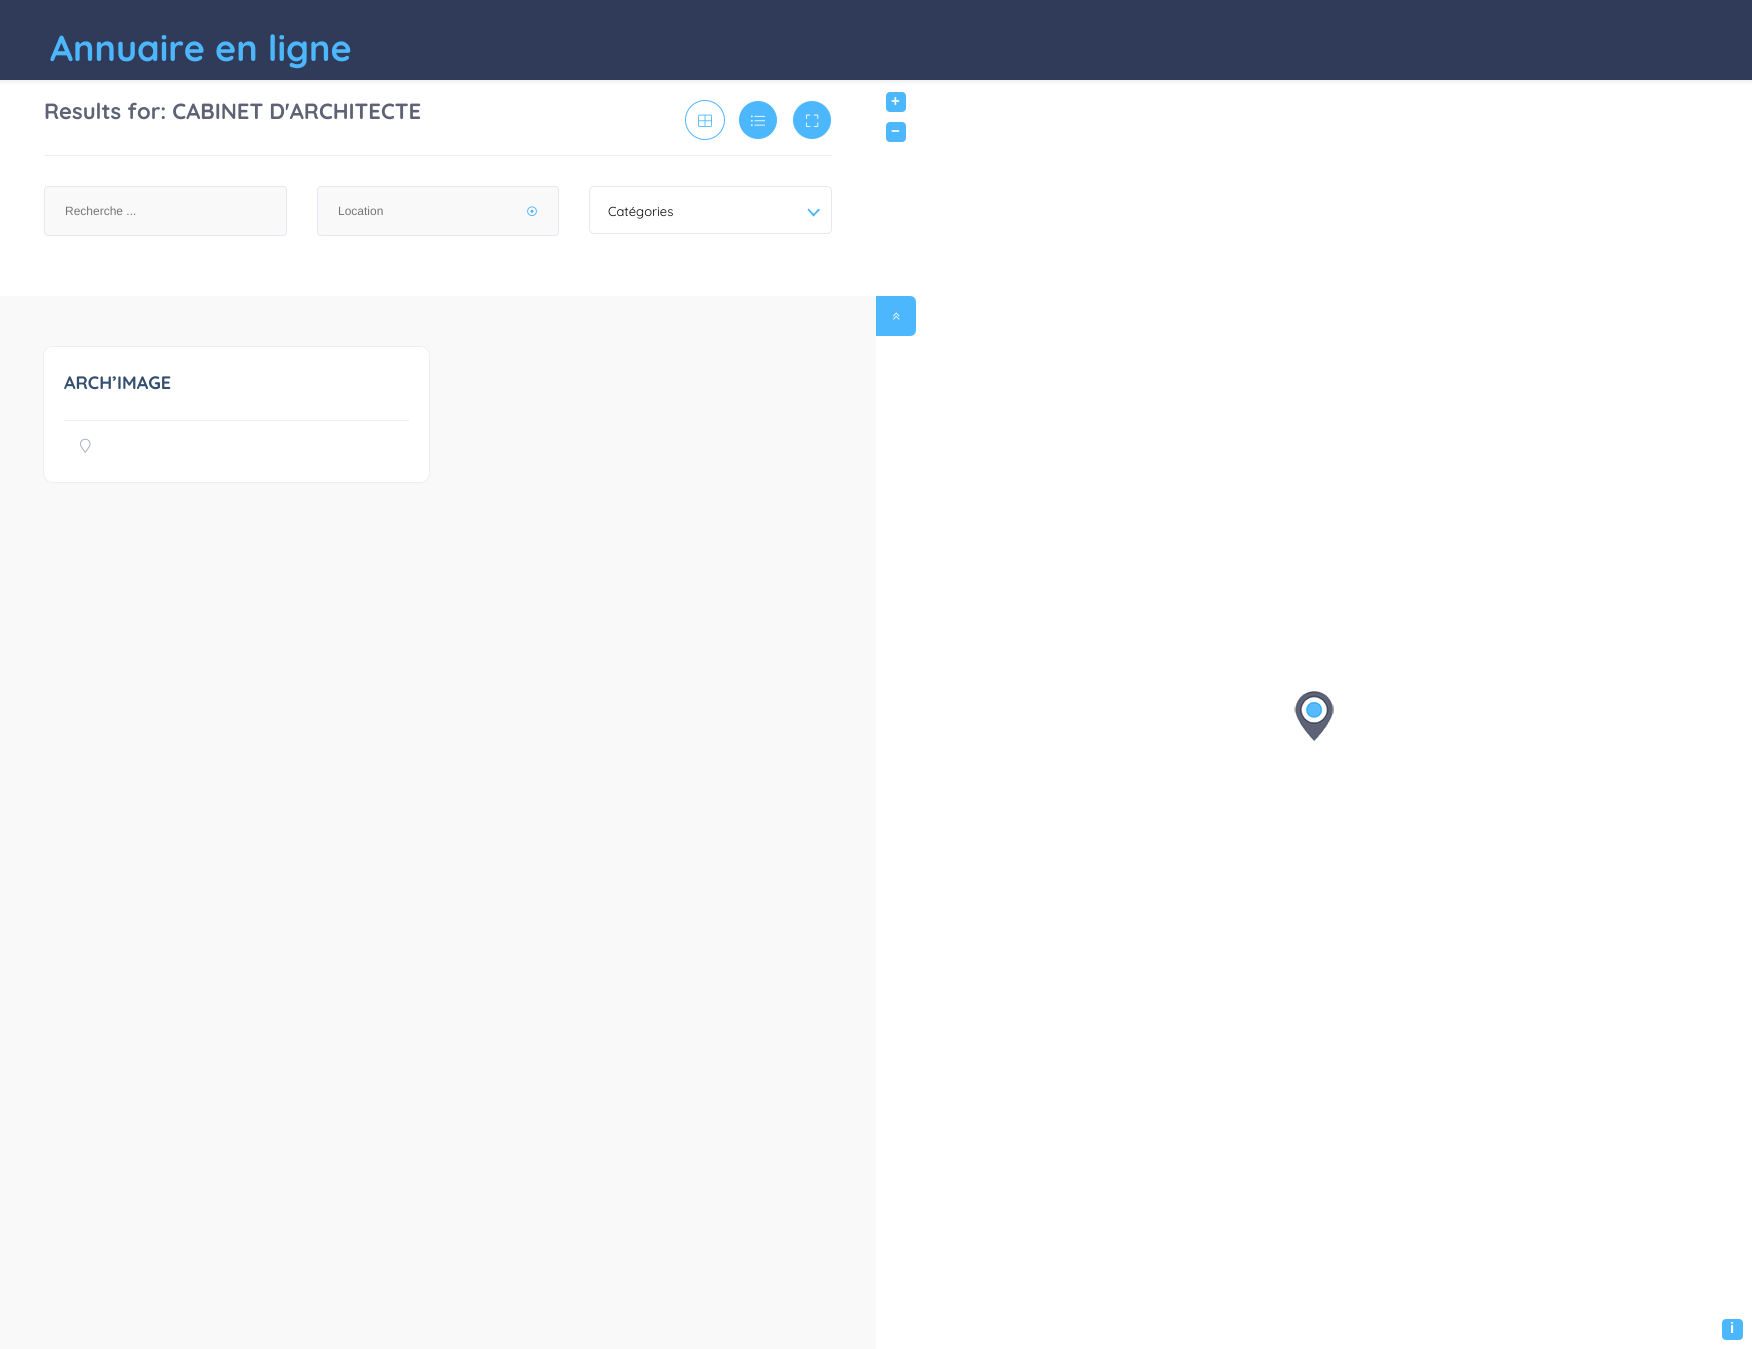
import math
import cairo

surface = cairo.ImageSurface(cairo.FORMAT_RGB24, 1752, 1349)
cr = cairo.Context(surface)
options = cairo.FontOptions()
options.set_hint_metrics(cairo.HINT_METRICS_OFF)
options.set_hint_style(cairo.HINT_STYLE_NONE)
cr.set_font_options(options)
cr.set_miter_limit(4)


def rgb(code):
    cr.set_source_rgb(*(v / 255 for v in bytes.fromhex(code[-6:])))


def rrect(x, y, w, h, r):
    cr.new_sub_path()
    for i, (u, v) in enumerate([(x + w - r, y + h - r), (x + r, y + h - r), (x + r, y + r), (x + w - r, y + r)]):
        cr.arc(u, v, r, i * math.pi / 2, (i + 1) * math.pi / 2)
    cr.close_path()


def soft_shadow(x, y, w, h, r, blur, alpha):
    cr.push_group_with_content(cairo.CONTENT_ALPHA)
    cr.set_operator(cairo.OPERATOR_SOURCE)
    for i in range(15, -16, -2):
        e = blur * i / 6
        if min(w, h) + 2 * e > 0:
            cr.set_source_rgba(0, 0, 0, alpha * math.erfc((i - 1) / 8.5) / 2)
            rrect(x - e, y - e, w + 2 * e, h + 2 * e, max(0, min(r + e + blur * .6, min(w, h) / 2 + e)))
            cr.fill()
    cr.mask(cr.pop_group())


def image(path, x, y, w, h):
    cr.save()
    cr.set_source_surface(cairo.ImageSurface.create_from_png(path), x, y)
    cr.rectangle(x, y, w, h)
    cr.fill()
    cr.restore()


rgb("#2f3b59")
cr.paint()
rgb("#ffffff")
cr.rectangle(876, 80, 876, 1269)
cr.fill()
cr.rectangle(0, 80, 876, 216)
cr.fill()
rgb("#4db7fe")
rrect(886, 92, 20, 20, 4)
cr.fill()
cr.save()
cr.rectangle(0, 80, 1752, 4)
cr.clip()
rgb("#000000")
soft_shadow(0, 0, 1752, 80, 0, 4, 0.12)
cr.restore()
rgb("#f9f9f9")
cr.rectangle(0, 296, 876, 1053)
cr.fill()
rgb("#eeeeee")
cr.rectangle(44, 155, 788, 1)
cr.fill()
cr.arc(705, 120, 19.5, 0, 2 * math.pi)
rgb("#4db7fe")
cr.set_line_width(1)
cr.stroke()
image("img/1.png", 698, 114, 14, 13)
cr.arc(758, 120, 19.5, 0, 2 * math.pi)
cr.fill_preserve()
rgb("#ffffff")
cr.stroke()
image("img/2.png", 751, 115, 14, 11)
rgb("#4db7fe")
cr.arc(812, 120, 19.5, 0, 2 * math.pi)
cr.fill_preserve()
rgb("#ffffff")
cr.stroke()
image("img/3.png", 806, 114, 13, 13)
rgb("#f9f9f9")
rrect(44.5, 186.5, 242, 49, 3.5)
cr.fill_preserve()
rgb("#e5e7f2")
cr.stroke()
rgb("#f9f9f9")
rrect(317.5, 186.5, 241, 49, 3.5)
cr.fill_preserve()
rgb("#e5e7f2")
cr.stroke()
image("img/4.png", 527, 206, 10, 11)
rrect(589.5, 186.5, 242, 47, 4.5)
cr.stroke()
rgb("#4db7fe")
cr.new_path()
cr.move_to(818.5, 208.5)
cr.line_to(820, 210)
cr.line_to(813.5, 216.5)
cr.line_to(812.5, 215)
cr.close_path()
cr.fill()
cr.new_path()
cr.move_to(808.5, 208.5)
cr.line_to(815, 215)
cr.line_to(813.5, 216.5)
cr.line_to(807.5, 210)
cr.close_path()
cr.fill()
cr.new_path()
cr.move_to(876, 296)
cr.line_to(910, 296)
cr.curve_to(913.5, 296, 916, 298.5, 916, 302)
cr.line_to(916, 330)
cr.curve_to(916, 333.5, 913.5, 336, 910, 336)
cr.line_to(876, 336)
cr.close_path()
cr.fill()
image("img/5.png", 893, 312, 7, 8)
rrect(43.5, 346.5, 386, 136, 9.5)
rgb("#eeeeee")
cr.stroke()
rgb("#ffffff")
rrect(44, 347, 385, 135, 9)
cr.fill()
rgb("#eeeeee")
cr.rectangle(64, 420, 345, 1)
cr.fill()
image("img/6.png", 80, 438, 11, 15)
rgb("#4db7fe")
rrect(886, 122, 20, 20, 4)
cr.fill()
rrect(1722, 1319, 21, 21, 4)
cr.fill()
image("img/7.png", 1294, 691, 40, 50)
cr.select_font_face("Quicksand", cairo.FONT_SLANT_NORMAL, cairo.FONT_WEIGHT_BOLD)
cr.set_font_size(36)
cr.move_to(50, 61)
cr.show_text("Annuaire en ligne")
cr.set_font_size(22)
rgb("#5d6275")
cr.move_to(44, 119)
cr.show_text("Results for: CABINET D'ARCHITECTE")
cr.select_font_face("Liberation Sans")
cr.set_font_size(12)
rgb("#757575")
cr.move_to(65, 215)
cr.show_text("Recherche ...")
cr.move_to(338, 215)
cr.show_text("Location")
cr.select_font_face("Quicksand Light")
cr.set_font_size(13)
rgb("#000000")
cr.move_to(608, 216)
cr.show_text("Catégories")
cr.select_font_face("Quicksand", cairo.FONT_SLANT_NORMAL, cairo.FONT_WEIGHT_BOLD)
cr.set_font_size(18)
rgb("#334e6f")
cr.move_to(64, 389)
cr.show_text("ARCH’IMAGE")
cr.select_font_face("Liberation Sans", cairo.FONT_SLANT_NORMAL, cairo.FONT_WEIGHT_BOLD)
cr.set_font_size(15)
rgb("#ffffff")
for x, y, s in [
    (891, 106, "+"),
    (891, 136, "−"),
    (1730, 1333, "i"),
]:
    cr.move_to(x, y)
    cr.show_text(s)
surface.write_to_png("page.png")
